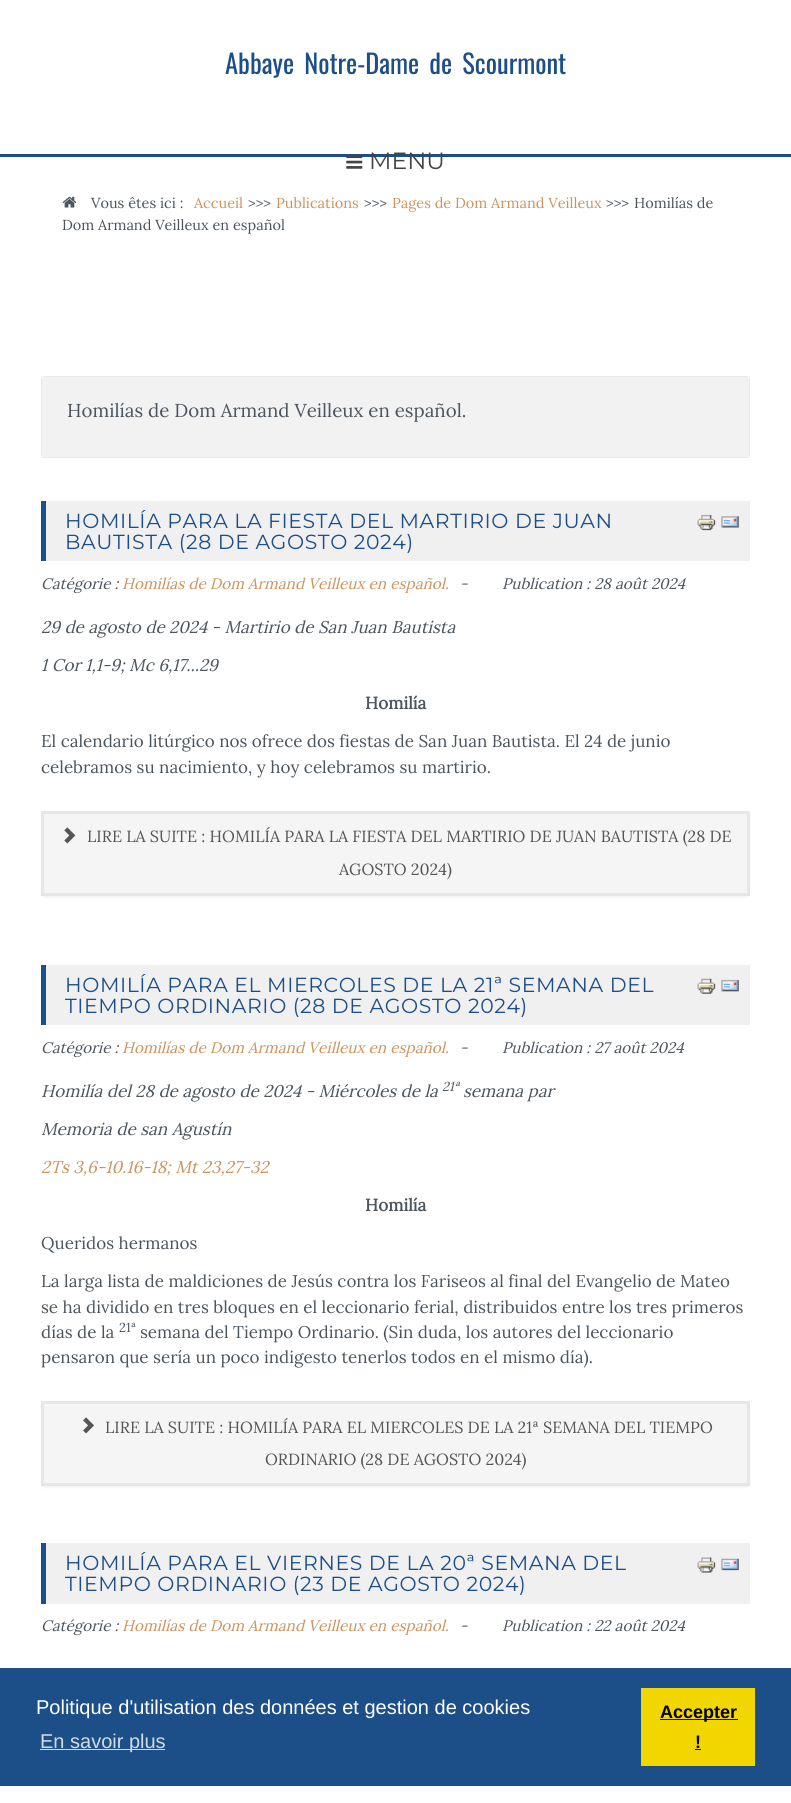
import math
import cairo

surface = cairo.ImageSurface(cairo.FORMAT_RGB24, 791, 1803)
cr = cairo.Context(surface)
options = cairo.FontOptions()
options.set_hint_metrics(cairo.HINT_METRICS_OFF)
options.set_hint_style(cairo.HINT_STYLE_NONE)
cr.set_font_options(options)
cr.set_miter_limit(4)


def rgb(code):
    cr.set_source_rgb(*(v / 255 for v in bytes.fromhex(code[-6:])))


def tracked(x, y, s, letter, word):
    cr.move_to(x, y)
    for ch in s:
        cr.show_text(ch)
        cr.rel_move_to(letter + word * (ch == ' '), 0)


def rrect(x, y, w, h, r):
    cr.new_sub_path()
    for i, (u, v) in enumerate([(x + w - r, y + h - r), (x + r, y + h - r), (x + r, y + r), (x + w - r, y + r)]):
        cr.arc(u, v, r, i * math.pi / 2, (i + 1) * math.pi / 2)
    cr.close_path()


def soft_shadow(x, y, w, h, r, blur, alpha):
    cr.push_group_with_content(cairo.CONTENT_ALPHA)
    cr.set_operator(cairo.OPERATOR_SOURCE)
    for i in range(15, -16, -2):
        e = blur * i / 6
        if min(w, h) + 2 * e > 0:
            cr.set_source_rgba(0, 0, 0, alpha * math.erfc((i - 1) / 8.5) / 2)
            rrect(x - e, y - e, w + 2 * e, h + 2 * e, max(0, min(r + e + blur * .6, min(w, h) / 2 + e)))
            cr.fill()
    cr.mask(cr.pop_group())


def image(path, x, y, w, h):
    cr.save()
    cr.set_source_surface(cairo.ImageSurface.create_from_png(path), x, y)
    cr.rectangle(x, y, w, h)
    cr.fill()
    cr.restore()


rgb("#ffffff")
cr.paint()
rgb("#1c4e88")
cr.rectangle(0, 154, 791, 3)
cr.fill()
image("img/1.png", 346, 155, 17, 14)
image("img/2.png", 62, 196, 15, 12)
rgb("#f2f2f2")
rrect(41, 376, 709, 82, 5)
cr.fill()
cr.rectangle(41.5, 376.5, 708, 81)
cr.set_source_rgba(0, 0, 0, 0.04)
cr.set_line_width(1)
cr.stroke()
rgb("#f0f0f0")
cr.rectangle(46, 501, 704, 60)
cr.fill()
rgb("#1c4e88")
cr.rectangle(41, 501, 5, 60)
cr.fill()
image("img/3.png", 697, 514, 19, 17)
image("img/4.png", 721, 516, 18, 12)
cr.save()
cr.set_fill_rule(cairo.FILL_RULE_EVEN_ODD)
cr.new_path()
cr.move_to(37, 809)
cr.line_to(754, 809)
cr.line_to(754, 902)
cr.line_to(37, 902)
cr.close_path()
cr.move_to(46, 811)
cr.line_to(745, 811)
cr.curve_to(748, 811, 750, 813, 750, 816)
cr.line_to(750, 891)
cr.curve_to(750, 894, 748, 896, 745, 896)
cr.line_to(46, 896)
cr.curve_to(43, 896, 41, 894, 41, 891)
cr.line_to(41, 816)
cr.curve_to(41, 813, 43, 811, 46, 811)
cr.close_path()
cr.clip()
rgb("#000000")
soft_shadow(41, 813, 709, 85, 5, 1, 0.05)
cr.restore()
cr.set_source_rgba(0, 0, 0, 0.04)
cr.rectangle(41, 811, 709, 85)
cr.fill()
cr.rectangle(42.5, 812.5, 706, 82)
cr.set_source_rgba(0, 0, 0, 0.06)
cr.set_line_width(3)
cr.stroke()
image("img/5.png", 64, 827, 12, 17)
rgb("#f0f0f0")
cr.rectangle(46, 965, 704, 60)
cr.fill()
rgb("#1c4e88")
cr.rectangle(41, 965, 5, 60)
cr.fill()
image("img/6.png", 697, 978, 19, 16)
image("img/7.png", 721, 979, 18, 13)
cr.save()
cr.set_fill_rule(cairo.FILL_RULE_EVEN_ODD)
cr.new_path()
cr.move_to(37, 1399)
cr.line_to(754, 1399)
cr.line_to(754, 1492)
cr.line_to(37, 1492)
cr.close_path()
cr.move_to(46, 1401)
cr.line_to(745, 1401)
cr.curve_to(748, 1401, 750, 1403, 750, 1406)
cr.line_to(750, 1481)
cr.curve_to(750, 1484, 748, 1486, 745, 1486)
cr.line_to(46, 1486)
cr.curve_to(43, 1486, 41, 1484, 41, 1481)
cr.line_to(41, 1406)
cr.curve_to(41, 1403, 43, 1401, 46, 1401)
cr.close_path()
cr.clip()
rgb("#000000")
soft_shadow(41, 1403, 709, 85, 5, 1, 0.05)
cr.restore()
cr.set_source_rgba(0, 0, 0, 0.04)
cr.rectangle(41, 1401, 709, 85)
cr.fill()
cr.rectangle(42.5, 1402.5, 706, 82)
cr.set_source_rgba(0, 0, 0, 0.06)
cr.stroke()
image("img/8.png", 83, 1417, 11, 17)
rgb("#f0f0f0")
cr.rectangle(46, 1543, 704, 61)
cr.fill()
rgb("#1c4e88")
cr.rectangle(41, 1543, 5, 61)
cr.fill()
image("img/9.png", 697, 1557, 19, 16)
image("img/10.png", 721, 1558, 18, 13)
for x, y, w, h, color in [
    (0, 1668, 791, 118, "#1c4e88"),
    (40, 1749, 125, 1, "#d2dce7"),
    (641, 1688, 114, 78, "#f1d600"),
    (660, 1719, 78, 1, "#000000"),
    (695, 1749, 6, 1, "#000000"),
]:
    rgb(color)
    cr.rectangle(x, y, w, h)
    cr.fill()
cr.select_font_face("Oswald")
cr.set_font_size(26.5)
rgb("#1c4e88")
tracked(225, 74, "Abbaye Notre-Dame de Scourmont", 0, 4)
cr.select_font_face("Montserrat Thin")
cr.set_font_size(23.5)
rgb("#444444")
cr.move_to(369, 169)
cr.show_text("MENU")
cr.select_font_face("Lora")
cr.set_font_size(14.5)
rgb("#4c555d")
cr.move_to(91, 208)
cr.show_text("Vous êtes ici :")
rgb("#cc935e")
cr.move_to(194, 208)
cr.show_text("Accueil")
rgb("#4c555d")
cr.move_to(248, 208)
cr.show_text(">>>")
rgb("#cc935e")
cr.move_to(276, 208)
cr.show_text("Publications")
rgb("#4c555d")
cr.move_to(364, 208)
cr.show_text(">>>")
rgb("#cc935e")
cr.move_to(392, 208)
cr.show_text("Pages de Dom Armand Veilleux")
rgb("#4c555d")
for x, y, s in [
    (606, 208, ">>>"),
    (634, 208, "Homilías de"),
    (62, 230, "Dom Armand Veilleux en español"),
]:
    cr.move_to(x, y)
    cr.show_text(s)
cr.set_font_size(18.7)
cr.move_to(67, 417)
cr.show_text("Homilías de Dom Armand Veilleux en español.")
cr.select_font_face("Montserrat Thin")
cr.set_font_size(20.4)
rgb("#1c4e88")
tracked(65, 528, "HOMILÍA PARA LA FIESTA DEL MARTIRIO DE JUAN", 0.6, 0)
tracked(65, 549, "BAUTISTA (28 DE AGOSTO 2024)", 0.6, 0)
cr.select_font_face("Lora", cairo.FONT_SLANT_ITALIC)
cr.set_font_size(15.3)
rgb("#4c555d")
cr.move_to(41, 589)
cr.show_text("Catégorie :")
rgb("#cc935e")
cr.move_to(122, 589)
cr.show_text("Homilías de Dom Armand Veilleux en español.")
rgb("#4c555d")
cr.move_to(460, 589)
cr.show_text("-")
cr.move_to(502, 589)
cr.show_text("Publication : 28 août 2024")
cr.set_font_size(17)
cr.move_to(41, 633)
cr.show_text("29 de agosto de 2024 - Martirio de San Juan Bautista")
cr.move_to(41, 671)
cr.show_text("1 Cor 1,1-9; Mc 6,17...29")
cr.select_font_face("Lora", cairo.FONT_SLANT_NORMAL, cairo.FONT_WEIGHT_BOLD)
cr.move_to(365, 709)
cr.show_text("Homilía")
cr.select_font_face("Lora")
cr.move_to(41, 747)
cr.show_text("El calendario litúrgico nos ofrece dos fiestas de San Juan Bautista. El 24 de junio")
cr.move_to(41, 773)
cr.show_text("celebramos su nacimiento, y hoy celebramos su martirio.")
cr.set_font_size(16.15)
rgb("#555555")
cr.move_to(87, 842)
cr.show_text("LIRE LA SUITE : HOMILÍA PARA LA FIESTA DEL MARTIRIO DE JUAN BAUTISTA (28 DE")
cr.move_to(339, 875)
cr.show_text("AGOSTO 2024)")
cr.select_font_face("Montserrat Thin")
cr.set_font_size(20.4)
rgb("#1c4e88")
tracked(65, 992, "HOMILÍA PARA EL MIERCOLES DE LA 21ª SEMANA DEL", 0.6, 0)
tracked(65, 1013, "TIEMPO ORDINARIO (28 DE AGOSTO 2024)", 0.6, 0)
cr.select_font_face("Lora", cairo.FONT_SLANT_ITALIC)
cr.set_font_size(15.3)
rgb("#4c555d")
cr.move_to(41, 1053)
cr.show_text("Catégorie :")
rgb("#cc935e")
cr.move_to(122, 1053)
cr.show_text("Homilías de Dom Armand Veilleux en español.")
rgb("#4c555d")
cr.move_to(460, 1053)
cr.show_text("-")
cr.move_to(502, 1053)
cr.show_text("Publication : 27 août 2024")
cr.set_font_size(17)
cr.move_to(41, 1097)
cr.show_text("Homilía del 28 de agosto de 2024 - Miércoles de la")
cr.set_font_size(13)
cr.move_to(442, 1091)
cr.show_text("21ª")
cr.set_font_size(17)
cr.move_to(463, 1097)
cr.show_text("semana par")
cr.move_to(41, 1135)
cr.show_text("Memoria de san Agustín")
rgb("#cc935e")
cr.move_to(41, 1173)
cr.show_text("2Ts 3,6-10.16-18; Mt 23,27-32")
cr.select_font_face("Lora", cairo.FONT_SLANT_NORMAL, cairo.FONT_WEIGHT_BOLD)
rgb("#4c555d")
cr.move_to(365, 1211)
cr.show_text("Homilía")
cr.select_font_face("Lora")
for x, y, s in [
    (41, 1249, "Queridos hermanos"),
    (41, 1287, "La larga lista de maldiciones de Jesús contra los Fariseos al final del Evangelio de Mateo"),
    (41, 1313, "se ha dividido en tres bloques en el leccionario ferial, distribuidos entre los tres primeros"),
    (41, 1338, "días de la"),
]:
    cr.move_to(x, y)
    cr.show_text(s)
cr.set_font_size(13)
cr.move_to(119, 1332)
cr.show_text("21ª")
cr.set_font_size(17)
cr.move_to(140, 1338)
cr.show_text("semana del Tiempo Ordinario. (Sin duda, los autores del leccionario")
cr.move_to(41, 1363)
cr.show_text("pensaron que sería un poco indigesto tenerlos todos en el mismo día).")
cr.set_font_size(16.15)
rgb("#555555")
cr.move_to(105, 1433)
cr.show_text("LIRE LA SUITE : HOMILÍA PARA EL MIERCOLES DE LA 21ª SEMANA DEL TIEMPO")
cr.move_to(265, 1465)
cr.show_text("ORDINARIO (28 DE AGOSTO 2024)")
cr.select_font_face("Montserrat Thin")
cr.set_font_size(20.4)
rgb("#1c4e88")
tracked(65, 1570, "HOMILÍA PARA EL VIERNES DE LA 20ª SEMANA DEL", 0.6, 0)
tracked(65, 1591, "TIEMPO ORDINARIO (23 DE AGOSTO 2024)", 0.6, 0)
cr.select_font_face("Lora", cairo.FONT_SLANT_ITALIC)
cr.set_font_size(15.3)
rgb("#4c555d")
cr.move_to(41, 1631)
cr.show_text("Catégorie :")
rgb("#cc935e")
cr.move_to(122, 1631)
cr.show_text("Homilías de Dom Armand Veilleux en español.")
rgb("#4c555d")
cr.move_to(460, 1631)
cr.show_text("-")
cr.move_to(502, 1631)
cr.show_text("Publication : 22 août 2024")
cr.select_font_face("Liberation Sans")
cr.set_font_size(20)
rgb("#ffffff")
cr.move_to(36, 1714)
cr.show_text("Politique d'utilisation des données et gestion de cookies")
rgb("#d2dce7")
cr.move_to(40, 1748)
cr.show_text("En savoir plus")
cr.select_font_face("Liberation Sans", cairo.FONT_SLANT_NORMAL, cairo.FONT_WEIGHT_BOLD)
cr.set_font_size(18)
rgb("#000000")
cr.move_to(660, 1718)
cr.show_text("Accepter")
cr.move_to(695, 1748)
cr.show_text("!")
surface.write_to_png("page.png")
